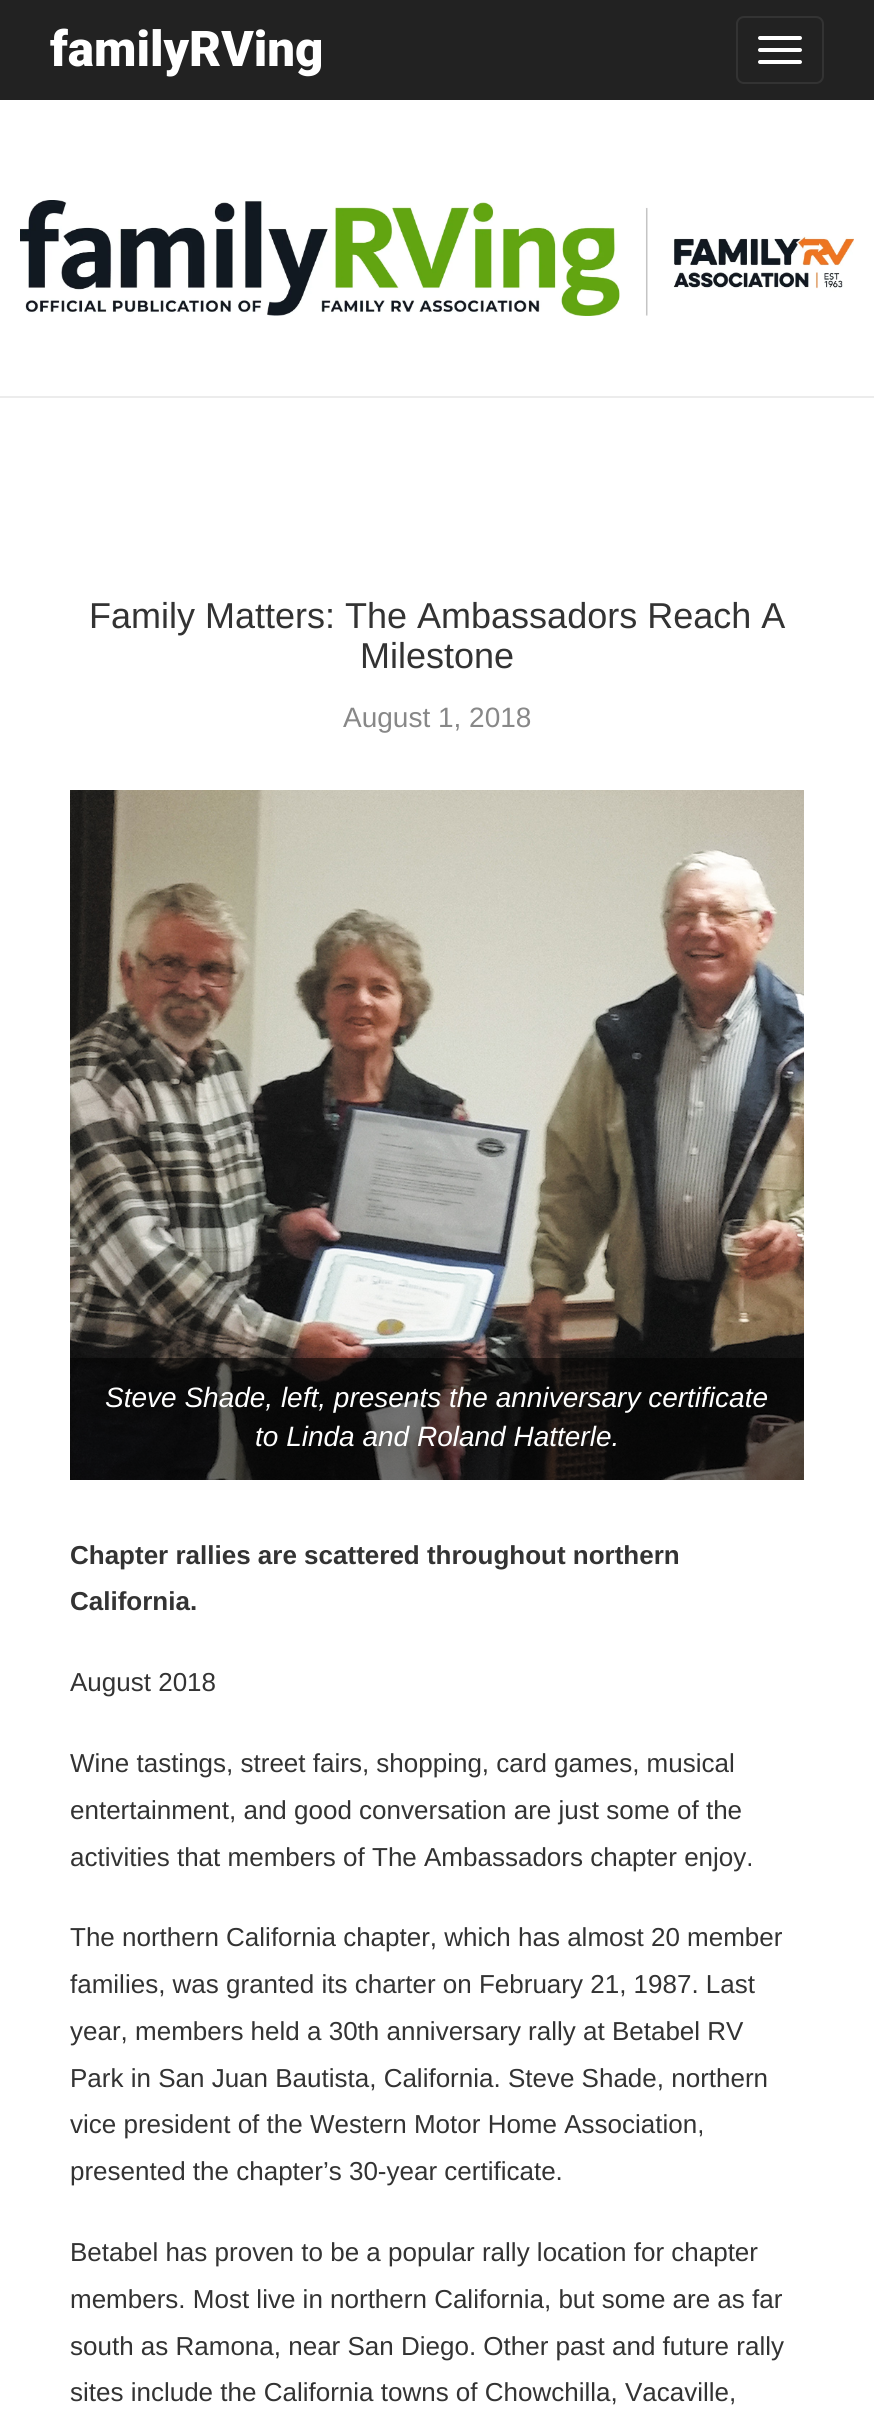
import math
import cairo

surface = cairo.ImageSurface(cairo.FORMAT_RGB24, 874, 2409)
cr = cairo.Context(surface)
options = cairo.FontOptions()
options.set_hint_metrics(cairo.HINT_METRICS_OFF)
options.set_hint_style(cairo.HINT_STYLE_NONE)
cr.set_font_options(options)
cr.set_miter_limit(4)


def rgb(code):
    cr.set_source_rgb(*(v / 255 for v in bytes.fromhex(code[-6:])))


def rrect(x, y, w, h, r):
    cr.new_sub_path()
    for i, (u, v) in enumerate([(x + w - r, y + h - r), (x + r, y + h - r), (x + r, y + r), (x + w - r, y + r)]):
        cr.arc(u, v, r, i * math.pi / 2, (i + 1) * math.pi / 2)
    cr.close_path()


def image(path, x, y, w, h):
    cr.save()
    cr.set_source_surface(cairo.ImageSurface.create_from_png(path), x, y)
    cr.rectangle(x, y, w, h)
    cr.fill()
    cr.restore()


rgb("#ffffff")
cr.paint()
rgb("#222222")
cr.rectangle(0, 0, 874, 100)
cr.fill()
rrect(737, 17, 86, 66, 7)
rgb("#333333")
cr.stroke()
rgb("#ffffff")
rrect(758, 36, 44, 4, 2)
cr.fill()
rrect(758, 48, 44, 4, 2)
cr.fill()
rrect(758, 60, 44, 4, 2)
cr.fill()
rgb("#ececec")
cr.rectangle(0, 396, 874, 2)
cr.fill()
image("img/1.png", 20, 200, 834, 116)
image("img/2.png", 70, 790, 734, 690)
cr.set_source_rgba(0, 0, 0, 0.5)
cr.rectangle(70, 1358, 734, 122)
cr.fill()
cr.select_font_face("Roboto Black")
cr.set_font_size(49.25)
rgb("#ffffff")
cr.move_to(50, 66)
cr.show_text("familyRVing")
cr.select_font_face("Liberation Sans")
cr.set_font_size(36)
rgb("#333333")
cr.move_to(89, 628)
cr.show_text("Family Matters: The Ambassadors Reach A")
cr.move_to(360, 668)
cr.show_text("Milestone")
cr.set_font_size(28)
rgb("#888888")
cr.move_to(343, 727)
cr.show_text("August 1, 2018")
cr.select_font_face("Liberation Sans", cairo.FONT_SLANT_ITALIC)
rgb("#ffffff")
cr.move_to(105, 1407)
cr.show_text("Steve Shade, left, presents the anniversary certificate")
cr.move_to(255, 1446)
cr.show_text("to Linda and Roland Hatterle.")
cr.select_font_face("Liberation Sans", cairo.FONT_SLANT_NORMAL, cairo.FONT_WEIGHT_BOLD)
cr.set_font_size(26)
rgb("#333333")
cr.move_to(70, 1564)
cr.show_text("Chapter rallies are scattered throughout northern")
cr.move_to(70, 1610)
cr.show_text("California.")
cr.select_font_face("Liberation Sans")
for x, y, s in [
    (70, 1691, "August 2018"),
    (70, 1772, "Wine tastings, street fairs, shopping, card games, musical"),
    (70, 1819, "entertainment, and good conversation are just some of the"),
    (70, 1866, "activities that members of The Ambassadors chapter enjoy."),
    (70, 1946, "The northern California chapter, which has almost 20 member"),
    (70, 1993, "families, was granted its charter on February 21, 1987. Last"),
    (70, 2040, "year, members held a 30th anniversary rally at Betabel RV"),
    (70, 2087, "Park in San Juan Bautista, California. Steve Shade, northern"),
    (70, 2133, "vice president of the Western Motor Home Association,"),
    (70, 2180, "presented the chapter’s 30-year certificate."),
    (70, 2261, "Betabel has proven to be a popular rally location for chapter"),
    (70, 2308, "members. Most live in northern California, but some are as far"),
    (70, 2355, "south as Ramona, near San Diego. Other past and future rally"),
    (70, 2401, "sites include the California towns of Chowchilla, Vacaville,"),
]:
    cr.move_to(x, y)
    cr.show_text(s)
surface.write_to_png("page.png")
